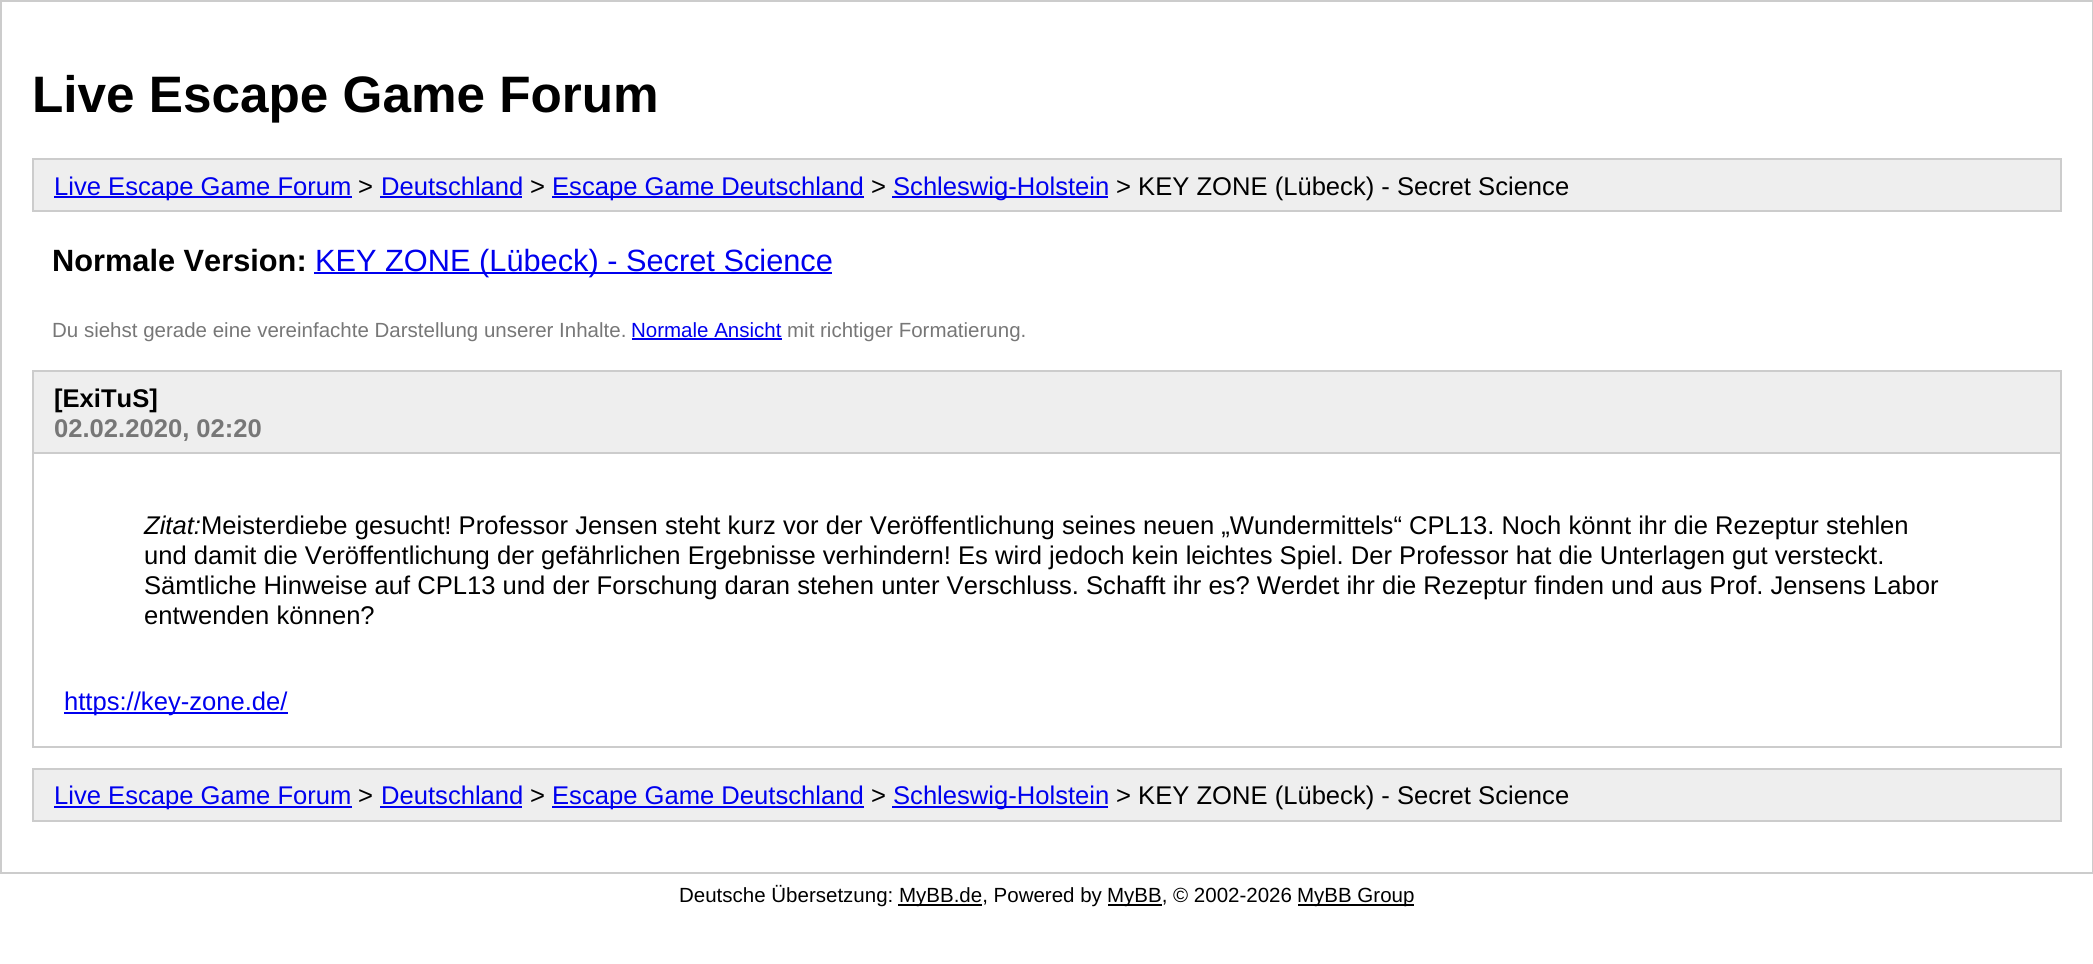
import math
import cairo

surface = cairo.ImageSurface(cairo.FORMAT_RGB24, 2093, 964)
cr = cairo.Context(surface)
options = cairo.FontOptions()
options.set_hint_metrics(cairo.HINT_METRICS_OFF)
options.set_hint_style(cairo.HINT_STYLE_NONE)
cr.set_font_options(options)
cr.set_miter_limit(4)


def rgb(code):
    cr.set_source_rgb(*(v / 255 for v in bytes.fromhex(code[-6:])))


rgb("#ffffff")
cr.paint()
cr.rectangle(1, 1, 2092, 872)
rgb("#cccccc")
cr.stroke()
rgb("#eeeeee")
cr.rectangle(33, 159, 2028, 52)
cr.fill_preserve()
rgb("#cccccc")
cr.stroke()
for x, y, w, h, color in [
    (54, 196, 298, 2, "#0000ee"),
    (380, 196, 142, 2, "#0000ee"),
    (552, 196, 312, 2, "#0000ee"),
    (892, 196, 216, 2, "#0000ee"),
    (314, 272, 518, 2, "#0000ee"),
    (632, 338, 150, 2, "#0000ee"),
    (34, 372, 2026, 80, "#eeeeee"),
]:
    rgb(color)
    cr.rectangle(x, y, w, h)
    cr.fill()
cr.rectangle(33, 371, 2028, 376)
rgb("#cccccc")
cr.stroke()
cr.rectangle(34, 452, 2026, 2)
cr.fill()
rgb("#0000ee")
cr.rectangle(64, 712, 224, 2)
cr.fill()
rgb("#eeeeee")
cr.rectangle(33, 769, 2028, 52)
cr.fill_preserve()
rgb("#cccccc")
cr.stroke()
for x, y, w, h, color in [
    (54, 806, 298, 2, "#0000ee"),
    (380, 806, 142, 2, "#0000ee"),
    (552, 806, 312, 2, "#0000ee"),
    (892, 806, 216, 2, "#0000ee"),
    (898, 904, 84, 2, "#000000"),
    (1108, 904, 54, 2, "#000000"),
    (1298, 904, 116, 2, "#000000"),
]:
    rgb(color)
    cr.rectangle(x, y, w, h)
    cr.fill()
cr.select_font_face("Liberation Sans", cairo.FONT_SLANT_NORMAL, cairo.FONT_WEIGHT_BOLD)
cr.set_font_size(51.25)
cr.move_to(32, 112)
cr.show_text("Live Escape Game Forum")
cr.select_font_face("Liberation Sans")
cr.set_font_size(25.6)
rgb("#0000ee")
cr.move_to(54, 195)
cr.show_text("Live Escape Game Forum")
rgb("#000000")
cr.move_to(358, 195)
cr.show_text(">")
rgb("#0000ee")
cr.move_to(381, 195)
cr.show_text("Deutschland")
rgb("#000000")
cr.move_to(530, 195)
cr.show_text(">")
rgb("#0000ee")
cr.move_to(552, 195)
cr.show_text("Escape Game Deutschland")
rgb("#000000")
cr.move_to(871, 195)
cr.show_text(">")
rgb("#0000ee")
cr.move_to(893, 195)
cr.show_text("Schleswig-Holstein")
rgb("#000000")
cr.move_to(1116, 195)
cr.show_text("> KEY ZONE (Lübeck) - Secret Science")
cr.select_font_face("Liberation Sans", cairo.FONT_SLANT_NORMAL, cairo.FONT_WEIGHT_BOLD)
cr.set_font_size(30.75)
cr.move_to(52, 271)
cr.show_text("Normale Version:")
cr.select_font_face("Liberation Sans")
rgb("#0000ee")
cr.move_to(315, 271)
cr.show_text("KEY ZONE (Lübeck) - Secret Science")
cr.set_font_size(20.5)
rgb("#777777")
cr.move_to(52, 337)
cr.show_text("Du siehst gerade eine vereinfachte Darstellung unserer Inhalte.")
rgb("#0000ee")
cr.move_to(631, 337)
cr.show_text("Normale Ansicht")
rgb("#777777")
cr.move_to(787, 337)
cr.show_text("mit richtiger Formatierung.")
cr.select_font_face("Liberation Sans", cairo.FONT_SLANT_NORMAL, cairo.FONT_WEIGHT_BOLD)
cr.set_font_size(25.6)
rgb("#000000")
cr.move_to(54, 407)
cr.show_text("[ExiTuS]")
rgb("#777777")
cr.move_to(54, 437)
cr.show_text("02.02.2020, 02:20")
cr.select_font_face("Liberation Sans", cairo.FONT_SLANT_ITALIC)
rgb("#000000")
cr.move_to(144, 534)
cr.show_text("Zitat:")
cr.select_font_face("Liberation Sans")
for x, y, s in [
    (201, 534, "Meisterdiebe gesucht! Professor Jensen steht kurz vor der Veröffentlichung seines neuen „Wundermittels“ CPL13. Noch könnt ihr die Rezeptur stehlen"),
    (144, 564, "und damit die Veröffentlichung der gefährlichen Ergebnisse verhindern! Es wird jedoch kein leichtes Spiel. Der Professor hat die Unterlagen gut versteckt."),
    (144, 594, "Sämtliche Hinweise auf CPL13 und der Forschung daran stehen unter Verschluss. Schafft ihr es? Werdet ihr die Rezeptur finden und aus Prof. Jensens Labor"),
    (144, 624, "entwenden können?"),
]:
    cr.move_to(x, y)
    cr.show_text(s)
rgb("#0000ee")
cr.move_to(64, 710)
cr.show_text("https://key-zone.de/")
cr.move_to(54, 804)
cr.show_text("Live Escape Game Forum")
rgb("#000000")
cr.move_to(358, 804)
cr.show_text(">")
rgb("#0000ee")
cr.move_to(381, 804)
cr.show_text("Deutschland")
rgb("#000000")
cr.move_to(530, 804)
cr.show_text(">")
rgb("#0000ee")
cr.move_to(552, 804)
cr.show_text("Escape Game Deutschland")
rgb("#000000")
cr.move_to(871, 804)
cr.show_text(">")
rgb("#0000ee")
cr.move_to(893, 804)
cr.show_text("Schleswig-Holstein")
rgb("#000000")
cr.move_to(1116, 804)
cr.show_text("> KEY ZONE (Lübeck) - Secret Science")
cr.set_font_size(20.5)
for x, y, s in [
    (679, 902, "Deutsche Übersetzung:"),
    (899, 902, "MyBB.de, Powered by"),
    (1107, 902, "MyBB, © 2002-2026"),
    (1297, 902, "MyBB Group"),
]:
    cr.move_to(x, y)
    cr.show_text(s)
surface.write_to_png("page.png")
